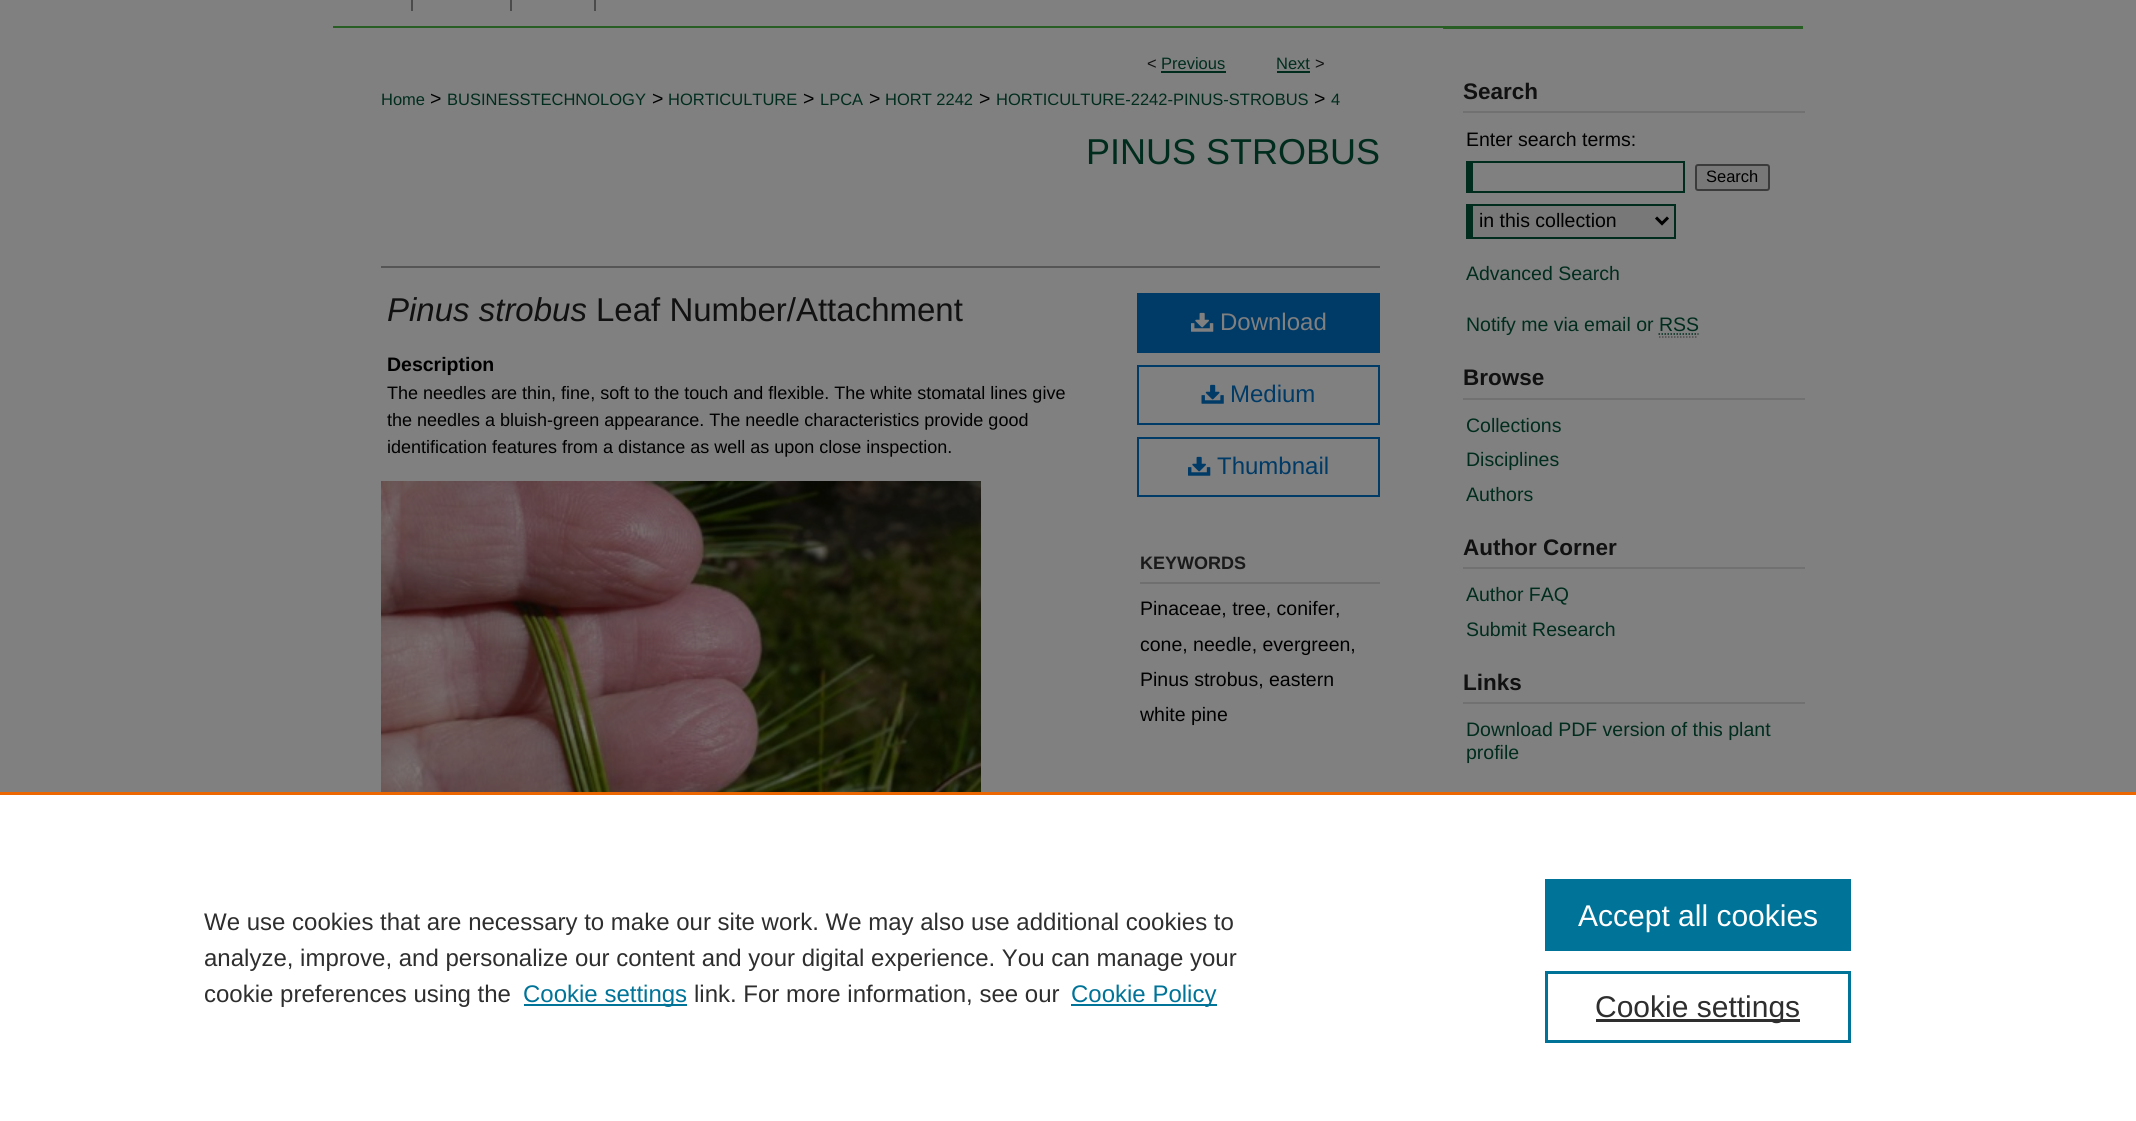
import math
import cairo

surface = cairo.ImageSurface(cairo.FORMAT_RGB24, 2136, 1121)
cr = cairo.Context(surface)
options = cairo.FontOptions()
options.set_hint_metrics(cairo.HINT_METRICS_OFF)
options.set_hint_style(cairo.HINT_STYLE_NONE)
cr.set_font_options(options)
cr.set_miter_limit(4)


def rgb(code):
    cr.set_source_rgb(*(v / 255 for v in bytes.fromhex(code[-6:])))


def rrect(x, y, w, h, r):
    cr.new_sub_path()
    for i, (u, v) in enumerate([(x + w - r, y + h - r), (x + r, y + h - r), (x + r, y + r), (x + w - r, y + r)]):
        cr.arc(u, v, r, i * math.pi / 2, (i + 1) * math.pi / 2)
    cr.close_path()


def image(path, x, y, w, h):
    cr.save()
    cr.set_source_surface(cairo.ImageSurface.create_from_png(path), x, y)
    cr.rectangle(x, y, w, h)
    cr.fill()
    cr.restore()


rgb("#808080")
cr.paint()
for x, y, w, h, color in [
    (333, 26, 1470, 3, "#285d24"),
    (411, 0, 2, 11, "#4b4b4b"),
    (510, 0, 2, 11, "#4b4b4b"),
    (594, 0, 2, 11, "#4b4b4b"),
    (333, 28, 1110, 1, "#808080"),
    (1161, 71, 65, 2, "#002c1e"),
    (1277, 71, 33, 2, "#002c1e"),
    (381, 266, 999, 2, "#555555"),
]:
    rgb(color)
    cr.rectangle(x, y, w, h)
    cr.fill()
image("img/1.png", 381, 481, 600, 311)
rgb("#003a66")
cr.rectangle(1137, 293, 243, 60)
cr.fill()
image("img/2.png", 1191, 312, 23, 20)
cr.rectangle(1138, 366, 241, 58)
cr.stroke()
image("img/3.png", 1201, 384, 23, 20)
cr.rectangle(1138, 438, 241, 58)
cr.stroke()
image("img/4.png", 1188, 456, 23, 20)
for x, y, w, h, color in [
    (1140, 582, 240, 2, "#6f6f6f"),
    (1463, 111, 342, 2, "#717171"),
    (1466, 161, 219, 2, "#002c1e"),
    (1683, 161, 2, 31, "#002c1e"),
    (1466, 191, 219, 2, "#002c1e"),
    (1466, 161, 7, 31, "#002c1e"),
]:
    rgb(color)
    cr.rectangle(x, y, w, h)
    cr.fill()
rgb("#787878")
rrect(1696, 165, 73, 25, 2)
cr.fill_preserve()
rgb("#3b3b3b")
cr.stroke()
for x, y, w, h, color in [
    (1473, 206, 201, 31, "#787878"),
    (1466, 204, 210, 2, "#002c1e"),
    (1674, 204, 2, 35, "#002c1e"),
    (1466, 237, 210, 2, "#002c1e"),
    (1466, 204, 7, 35, "#002c1e"),
]:
    rgb(color)
    cr.rectangle(x, y, w, h)
    cr.fill()
cr.new_path()
cr.move_to(1656, 217.5)
cr.line_to(1662, 223.5)
cr.line_to(1668, 217.5)
rgb("#000000")
cr.set_line_width(3)
cr.stroke()
cr.new_path()
cr.move_to(1658.5, 334)
cr.line_to(1698.5, 334)
rgb("#002c1e")
cr.set_line_width(1.5)
cr.set_dash([1.5, 1.5])
cr.stroke()
cr.new_path()
cr.move_to(1659, 337)
cr.line_to(1698, 337)
rgb("#4d4d4d")
cr.stroke()
for x, y, w, h, color in [
    (1463, 398, 342, 2, "#717171"),
    (1463, 567, 342, 2, "#717171"),
    (1463, 702, 342, 2, "#717171"),
    (0, 795, 2136, 326, "#ffffff"),
    (0, 792, 2136, 3, "#eb6500"),
    (524, 1004, 163, 2, "#007398"),
    (1071, 1004, 146, 2, "#007398"),
    (1545, 879, 306, 72, "#007398"),
]:
    rgb(color)
    cr.rectangle(x, y, w, h)
    cr.fill()
cr.rectangle(1546.5, 972.5, 303, 69)
cr.set_line_width(3)
cr.set_dash([])
cr.stroke()
rgb("#2e2e2e")
cr.rectangle(1596, 1019, 204, 3)
cr.fill()
cr.select_font_face("Liberation Sans")
cr.set_font_size(16.5)
rgb("#111111")
cr.move_to(1147, 69)
cr.show_text("<")
rgb("#002c1e")
cr.move_to(1161, 69)
cr.show_text("Previous")
cr.move_to(1276, 69)
cr.show_text("Next")
rgb("#111111")
cr.move_to(1315, 69)
cr.show_text(">")
rgb("#002c1e")
cr.move_to(381, 105)
cr.show_text("Home")
cr.set_font_size(19.5)
rgb("#000000")
cr.move_to(430, 105)
cr.show_text(">")
cr.set_font_size(16.5)
rgb("#002c1e")
cr.move_to(447, 105)
cr.show_text("BUSINESSTECHNOLOGY")
cr.set_font_size(19.5)
rgb("#000000")
cr.move_to(652, 105)
cr.show_text(">")
cr.set_font_size(16.5)
rgb("#002c1e")
cr.move_to(668, 105)
cr.show_text("HORTICULTURE")
cr.set_font_size(19.5)
rgb("#000000")
cr.move_to(803, 105)
cr.show_text(">")
cr.set_font_size(16.5)
rgb("#002c1e")
cr.move_to(820, 105)
cr.show_text("LPCA")
cr.set_font_size(19.5)
rgb("#000000")
cr.move_to(869, 105)
cr.show_text(">")
cr.set_font_size(16.5)
rgb("#002c1e")
cr.move_to(885, 105)
cr.show_text("HORT 2242")
cr.set_font_size(19.5)
rgb("#000000")
cr.move_to(979, 105)
cr.show_text(">")
cr.set_font_size(16.5)
rgb("#002c1e")
cr.move_to(996, 105)
cr.show_text("HORTICULTURE-2242-PINUS-STROBUS")
cr.set_font_size(19.5)
rgb("#000000")
cr.move_to(1314, 105)
cr.show_text(">")
cr.set_font_size(16.5)
rgb("#002c1e")
cr.move_to(1331, 105)
cr.show_text("4")
cr.set_font_size(36)
cr.move_to(1086, 164)
cr.show_text("PINUS STROBUS")
cr.select_font_face("Liberation Sans", cairo.FONT_SLANT_ITALIC)
cr.set_font_size(33)
rgb("#111111")
cr.move_to(387, 321)
cr.show_text("Pinus strobus")
cr.select_font_face("Liberation Sans")
cr.move_to(596, 321)
cr.show_text("Leaf Number/Attachment")
cr.select_font_face("Liberation Sans", cairo.FONT_SLANT_NORMAL, cairo.FONT_WEIGHT_BOLD)
cr.set_font_size(19.5)
rgb("#000000")
cr.move_to(387, 371)
cr.show_text("Description")
cr.select_font_face("Liberation Sans")
cr.set_font_size(18)
for x, y, s in [
    (387, 399, "The needles are thin, fine, soft to the touch and flexible. The white stomatal lines give"),
    (387, 426, "the needles a bluish-green appearance. The needle characteristics provide good"),
    (387, 453, "identification features from a distance as well as upon close inspection."),
]:
    cr.move_to(x, y)
    cr.show_text(s)
cr.set_font_size(24)
rgb("#808080")
cr.move_to(1220, 330)
cr.show_text("Download")
rgb("#003a66")
cr.move_to(1230, 402)
cr.show_text("Medium")
cr.move_to(1217, 474)
cr.show_text("Thumbnail")
cr.select_font_face("Liberation Sans", cairo.FONT_SLANT_NORMAL, cairo.FONT_WEIGHT_BOLD)
cr.set_font_size(18)
rgb("#1a1a1a")
cr.move_to(1140, 569)
cr.show_text("KEYWORDS")
cr.select_font_face("Liberation Sans")
cr.set_font_size(19.5)
rgb("#000000")
for x, y, s in [
    (1140, 615, "Pinaceae, tree, conifer,"),
    (1140, 651, "cone, needle, evergreen,"),
    (1140, 686, "Pinus strobus, eastern"),
    (1140, 721, "white pine"),
]:
    cr.move_to(x, y)
    cr.show_text(s)
cr.select_font_face("Liberation Sans", cairo.FONT_SLANT_NORMAL, cairo.FONT_WEIGHT_BOLD)
cr.set_font_size(22.5)
rgb("#111111")
cr.move_to(1463, 99)
cr.show_text("Search")
cr.select_font_face("Liberation Sans")
cr.set_font_size(19.5)
rgb("#000000")
cr.move_to(1466, 146)
cr.show_text("Enter search terms:")
cr.set_font_size(16.5)
cr.move_to(1706, 182)
cr.show_text("Search")
cr.set_font_size(19.5)
cr.move_to(1479, 227)
cr.show_text("in this collection")
rgb("#002c1e")
cr.move_to(1466, 280)
cr.show_text("Advanced Search")
cr.move_to(1466, 331)
cr.show_text("Notify me via email or RSS")
cr.select_font_face("Liberation Sans", cairo.FONT_SLANT_NORMAL, cairo.FONT_WEIGHT_BOLD)
cr.set_font_size(22.5)
rgb("#111111")
cr.move_to(1463, 385)
cr.show_text("Browse")
cr.select_font_face("Liberation Sans")
cr.set_font_size(19.5)
rgb("#002c1e")
for x, y, s in [
    (1466, 432, "Collections"),
    (1466, 466, "Disciplines"),
    (1466, 501, "Authors"),
]:
    cr.move_to(x, y)
    cr.show_text(s)
cr.select_font_face("Liberation Sans", cairo.FONT_SLANT_NORMAL, cairo.FONT_WEIGHT_BOLD)
cr.set_font_size(22.5)
rgb("#111111")
cr.move_to(1463, 555)
cr.show_text("Author Corner")
cr.select_font_face("Liberation Sans")
cr.set_font_size(19.5)
rgb("#002c1e")
cr.move_to(1466, 601)
cr.show_text("Author FAQ")
cr.move_to(1466, 636)
cr.show_text("Submit Research")
cr.select_font_face("Liberation Sans", cairo.FONT_SLANT_NORMAL, cairo.FONT_WEIGHT_BOLD)
cr.set_font_size(22.5)
rgb("#111111")
cr.move_to(1463, 690)
cr.show_text("Links")
cr.select_font_face("Liberation Sans")
cr.set_font_size(19.5)
rgb("#002c1e")
cr.move_to(1466, 736)
cr.show_text("Download PDF version of this plant")
cr.move_to(1466, 759)
cr.show_text("profile")
cr.set_font_size(24)
rgb("#2e2e2e")
for x, y, s in [
    (204, 930, "We use cookies that are necessary to make our site work. We may also use additional cookies to"),
    (204, 966, "analyze, improve, and personalize our content and your digital experience. You can manage your"),
    (204, 1002, "cookie preferences using the"),
]:
    cr.move_to(x, y)
    cr.show_text(s)
rgb("#007398")
cr.move_to(523, 1002)
cr.show_text("Cookie settings")
rgb("#2e2e2e")
cr.move_to(694, 1002)
cr.show_text("link. For more information, see our")
rgb("#007398")
cr.move_to(1071, 1002)
cr.show_text("Cookie Policy")
cr.set_font_size(30)
rgb("#ffffff")
cr.move_to(1578, 926)
cr.show_text("Accept all cookies")
rgb("#2e2e2e")
cr.move_to(1595, 1017)
cr.show_text("Cookie settings")
surface.write_to_png("page.png")
